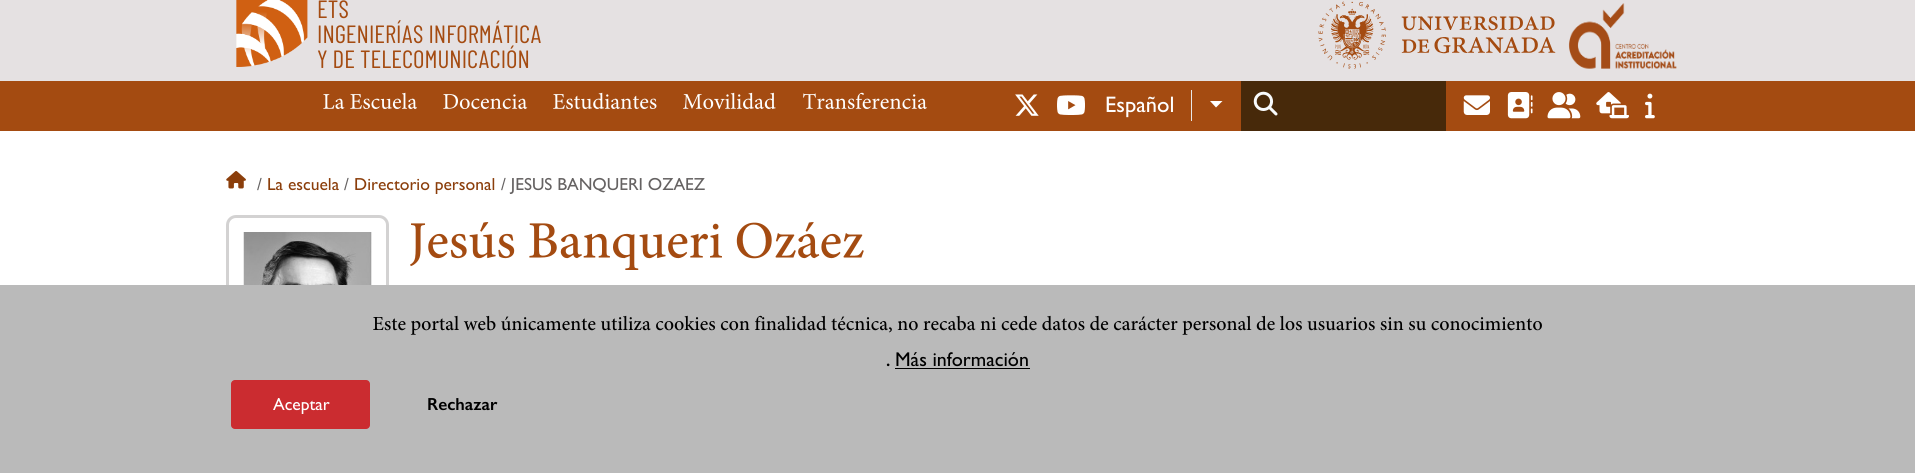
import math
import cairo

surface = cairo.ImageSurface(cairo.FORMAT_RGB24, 1915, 473)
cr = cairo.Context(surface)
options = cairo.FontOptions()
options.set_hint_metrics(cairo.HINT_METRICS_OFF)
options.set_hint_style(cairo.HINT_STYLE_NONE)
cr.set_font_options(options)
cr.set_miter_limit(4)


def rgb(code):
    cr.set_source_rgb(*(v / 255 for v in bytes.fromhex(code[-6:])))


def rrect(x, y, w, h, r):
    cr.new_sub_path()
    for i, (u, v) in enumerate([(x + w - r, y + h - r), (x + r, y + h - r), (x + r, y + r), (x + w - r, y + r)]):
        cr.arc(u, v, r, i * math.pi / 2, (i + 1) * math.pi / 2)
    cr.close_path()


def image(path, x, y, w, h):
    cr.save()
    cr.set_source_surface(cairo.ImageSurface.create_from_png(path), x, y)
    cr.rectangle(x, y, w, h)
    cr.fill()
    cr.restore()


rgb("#ffffff")
cr.paint()
rgb("#a44b11")
cr.rectangle(0, 81, 1915, 50)
cr.fill()
rgb("#e5e1e2")
cr.rectangle(0, 0, 1915, 81)
cr.fill()
image("img/1.png", 236, 0, 72, 67)
image("img/2.png", 1318, 1, 238, 68)
image("img/3.png", 1568, 3, 109, 66)
image("img/4.png", 323, 92, 94, 17)
image("img/5.png", 443, 94, 85, 15)
image("img/6.png", 553, 92, 104, 17)
image("img/7.png", 683, 92, 93, 17)
image("img/8.png", 803, 92, 124, 17)
image("img/9.png", 1015, 94, 24, 22)
image("img/10.png", 1057, 95, 28, 20)
rgb("#e8e8e8")
cr.rectangle(1191, 90, 1, 31)
cr.fill()
rgb("#ffffff")
cr.new_path()
cr.move_to(1210, 101)
cr.line_to(1222.5, 101)
cr.line_to(1216, 107.5)
cr.close_path()
cr.fill()
rgb("#47290a")
cr.rectangle(1241, 81, 205, 50)
cr.fill()
image("img/11.png", 1253, 91, 25, 25)
image("img/12.png", 1463, 95, 27, 20)
image("img/13.png", 1507, 92, 26, 27)
image("img/14.png", 1547, 92, 34, 27)
image("img/15.png", 1596, 92, 33, 27)
image("img/16.png", 1645, 93, 10, 26)
image("img/17.png", 226, 171, 20, 18)
rrect(227.5, 216.5, 160, 185, 8.5)
rgb("#d3d2d2")
cr.set_line_width(3)
cr.stroke()
image("img/18.png", 243, 232, 129, 53)
image("img/19.png", 410, 222, 454, 48)
rgb("#bababa")
cr.rectangle(0, 285, 1915, 188)
cr.fill()
image("img/20.png", 373, 315, 1169, 20)
rgb("#000000")
cr.rectangle(895, 368, 135, 1)
cr.fill()
rgb("#cb2c30")
rrect(231, 380, 139, 49, 4)
cr.fill()
cr.select_font_face("Barlow Condensed")
cr.set_font_size(25)
rgb("#a44b11")
for x, y, s in [
    (317, 18, "ETS"),
    (317, 43, "INGENIERÍAS INFORMÁTICA"),
    (317, 68, "Y DE TELECOMUNICACIÓN"),
]:
    cr.move_to(x, y)
    cr.show_text(s)
cr.select_font_face("Gill Sans")
cr.set_font_size(22.5)
rgb("#ffffff")
cr.move_to(1105, 112)
cr.show_text("Español")
cr.set_font_size(17.5)
rgb("#656262")
cr.move_to(257, 190)
cr.show_text("/")
rgb("#8b3e0b")
cr.move_to(267, 190)
cr.show_text("La escuela")
rgb("#656262")
cr.move_to(344, 190)
cr.show_text("/")
rgb("#8b3e0b")
cr.move_to(354, 190)
cr.show_text("Directorio personal")
rgb("#656262")
cr.move_to(501, 190)
cr.show_text("/ JESUS BANQUERI OZAEZ")
cr.select_font_face("Gill Sans SemiBold")
rgb("#000000")
cr.move_to(886, 366)
cr.show_text(".")
cr.select_font_face("Gill Sans")
cr.set_font_size(20)
cr.move_to(895, 366)
cr.show_text("Más información")
cr.set_font_size(17.5)
rgb("#ffffff")
cr.move_to(273, 410)
cr.show_text("Aceptar")
cr.select_font_face("Gill Sans SemiBold")
rgb("#000000")
cr.move_to(427, 410)
cr.show_text("Rechazar")
surface.write_to_png("page.png")
